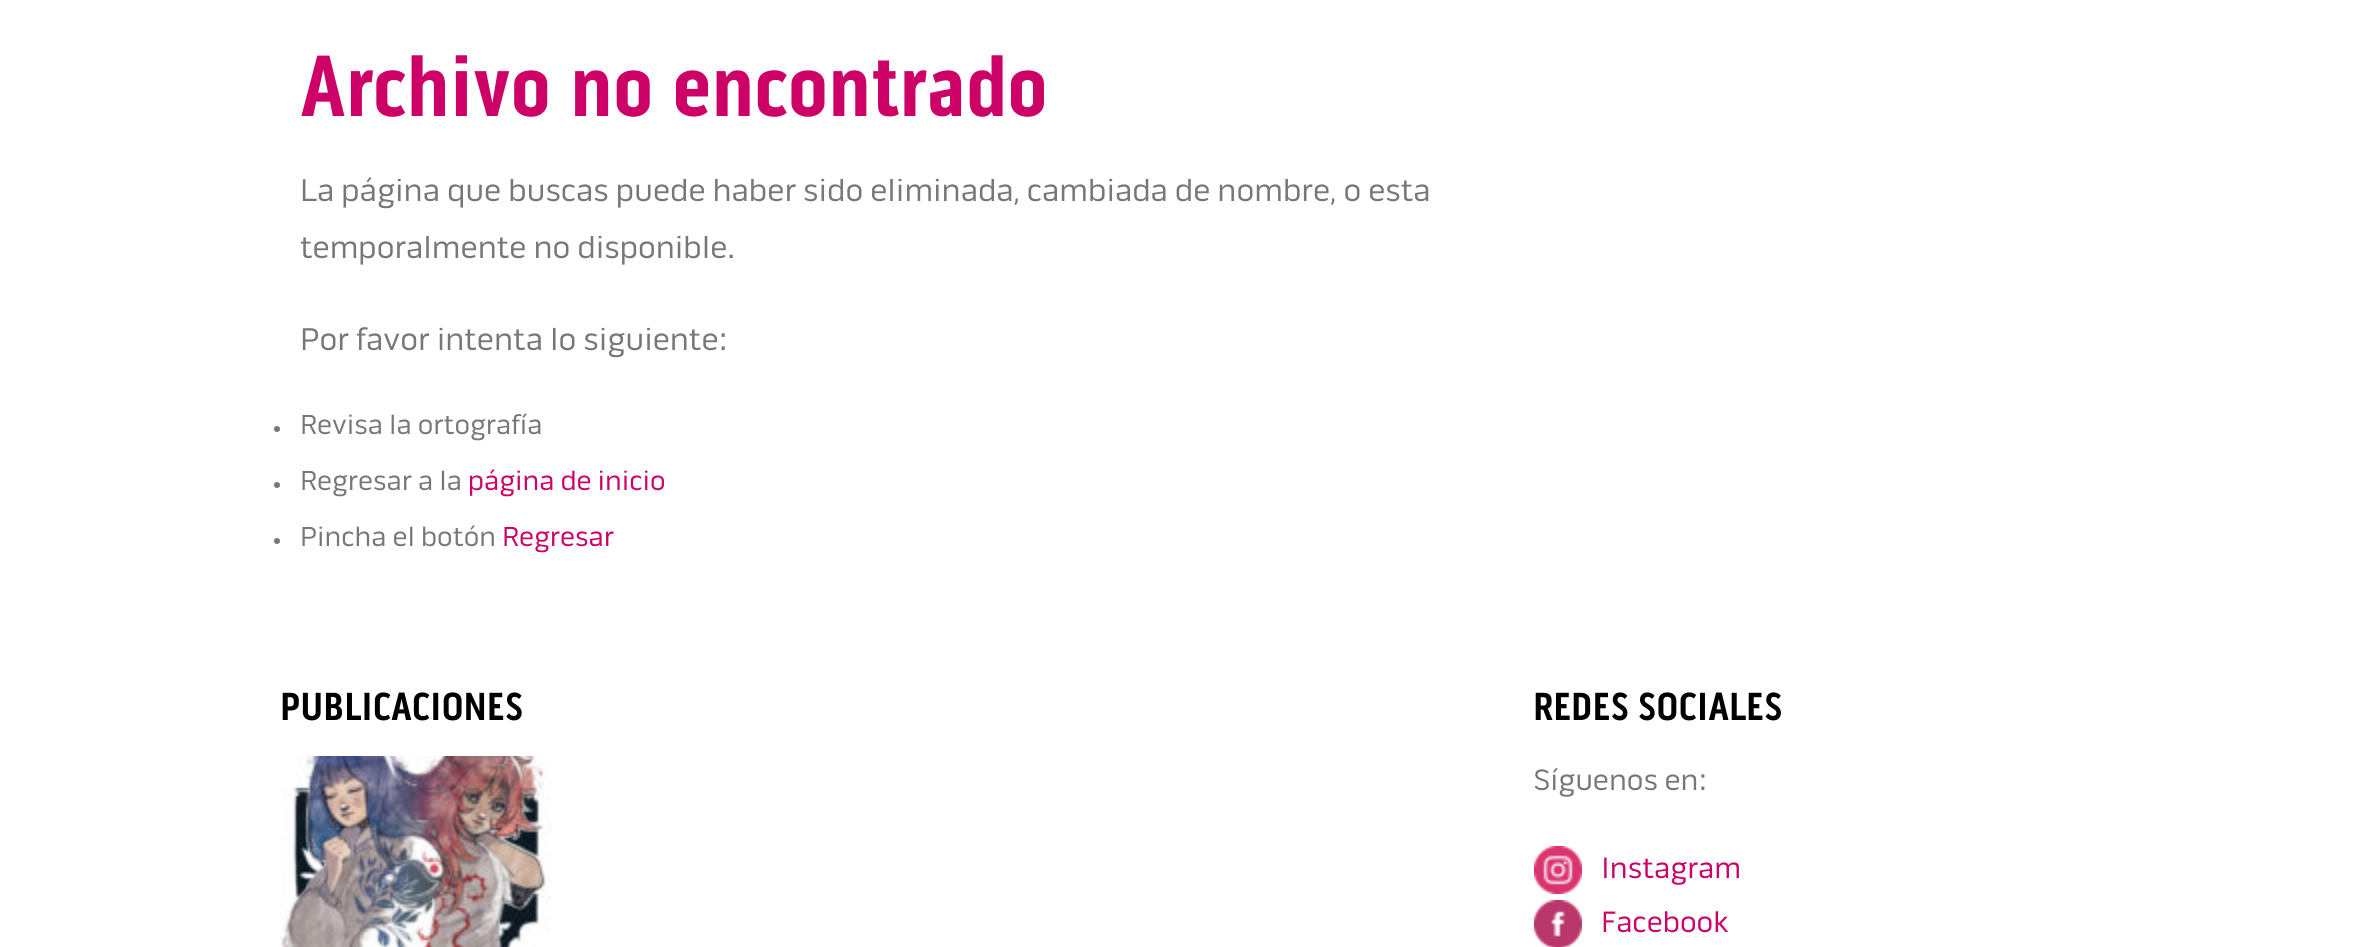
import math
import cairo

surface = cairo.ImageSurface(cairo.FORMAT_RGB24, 2380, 947)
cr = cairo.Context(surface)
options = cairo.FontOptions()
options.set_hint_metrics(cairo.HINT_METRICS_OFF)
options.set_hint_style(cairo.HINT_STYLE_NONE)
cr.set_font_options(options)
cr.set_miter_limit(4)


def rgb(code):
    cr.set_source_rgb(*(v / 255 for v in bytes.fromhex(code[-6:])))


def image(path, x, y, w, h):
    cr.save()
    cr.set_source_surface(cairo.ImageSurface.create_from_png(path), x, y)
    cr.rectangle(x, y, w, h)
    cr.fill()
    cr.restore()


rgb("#ffffff")
cr.paint()
rgb("#777777")
cr.arc(277, 429, 3, 0, 2 * math.pi)
cr.fill()
cr.arc(277, 485, 3, 0, 2 * math.pi)
cr.fill()
cr.arc(277, 541, 3, 0, 2 * math.pi)
cr.fill()
image("img/1.png", 280, 756, 272, 191)
image("img/2.png", 1534, 846, 48, 48)
image("img/3.png", 1534, 900, 48, 47)
cr.select_font_face("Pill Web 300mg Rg", cairo.FONT_SLANT_NORMAL, cairo.FONT_WEIGHT_BOLD)
cr.set_font_size(88)
rgb("#cc0066")
cr.move_to(300, 116)
cr.show_text("Archivo no encontrado")
cr.select_font_face("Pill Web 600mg")
cr.set_font_size(32)
rgb("#777777")
for x, y, s in [
    (300, 201, "La página que buscas puede haber sido eliminada, cambiada de nombre, o esta"),
    (300, 258, "temporalmente no disponible."),
    (300, 350, "Por favor intenta lo siguiente:"),
]:
    cr.move_to(x, y)
    cr.show_text(s)
cr.set_font_size(28)
cr.move_to(300, 434)
cr.show_text("Revisa la ortografía")
cr.move_to(300, 490)
cr.show_text("Regresar a la")
rgb("#cc0066")
cr.move_to(468, 490)
cr.show_text("página de inicio")
rgb("#777777")
cr.move_to(300, 546)
cr.show_text("Pincha el botón")
rgb("#cc0066")
cr.move_to(502, 546)
cr.show_text("Regresar")
cr.select_font_face("Pill Web 300mg Rg", cairo.FONT_SLANT_NORMAL, cairo.FONT_WEIGHT_BOLD)
cr.set_font_size(40)
rgb("#000000")
cr.move_to(280, 720)
cr.show_text("PUBLICACIONES")
cr.move_to(1533, 720)
cr.show_text("REDES SOCIALES")
cr.select_font_face("Pill Web 600mg")
cr.set_font_size(30)
rgb("#777777")
cr.move_to(1533, 790)
cr.show_text("Síguenos en:")
rgb("#cc0066")
cr.move_to(1601, 878)
cr.show_text("Instagram")
cr.move_to(1601, 932)
cr.show_text("Facebook")
surface.write_to_png("page.png")
